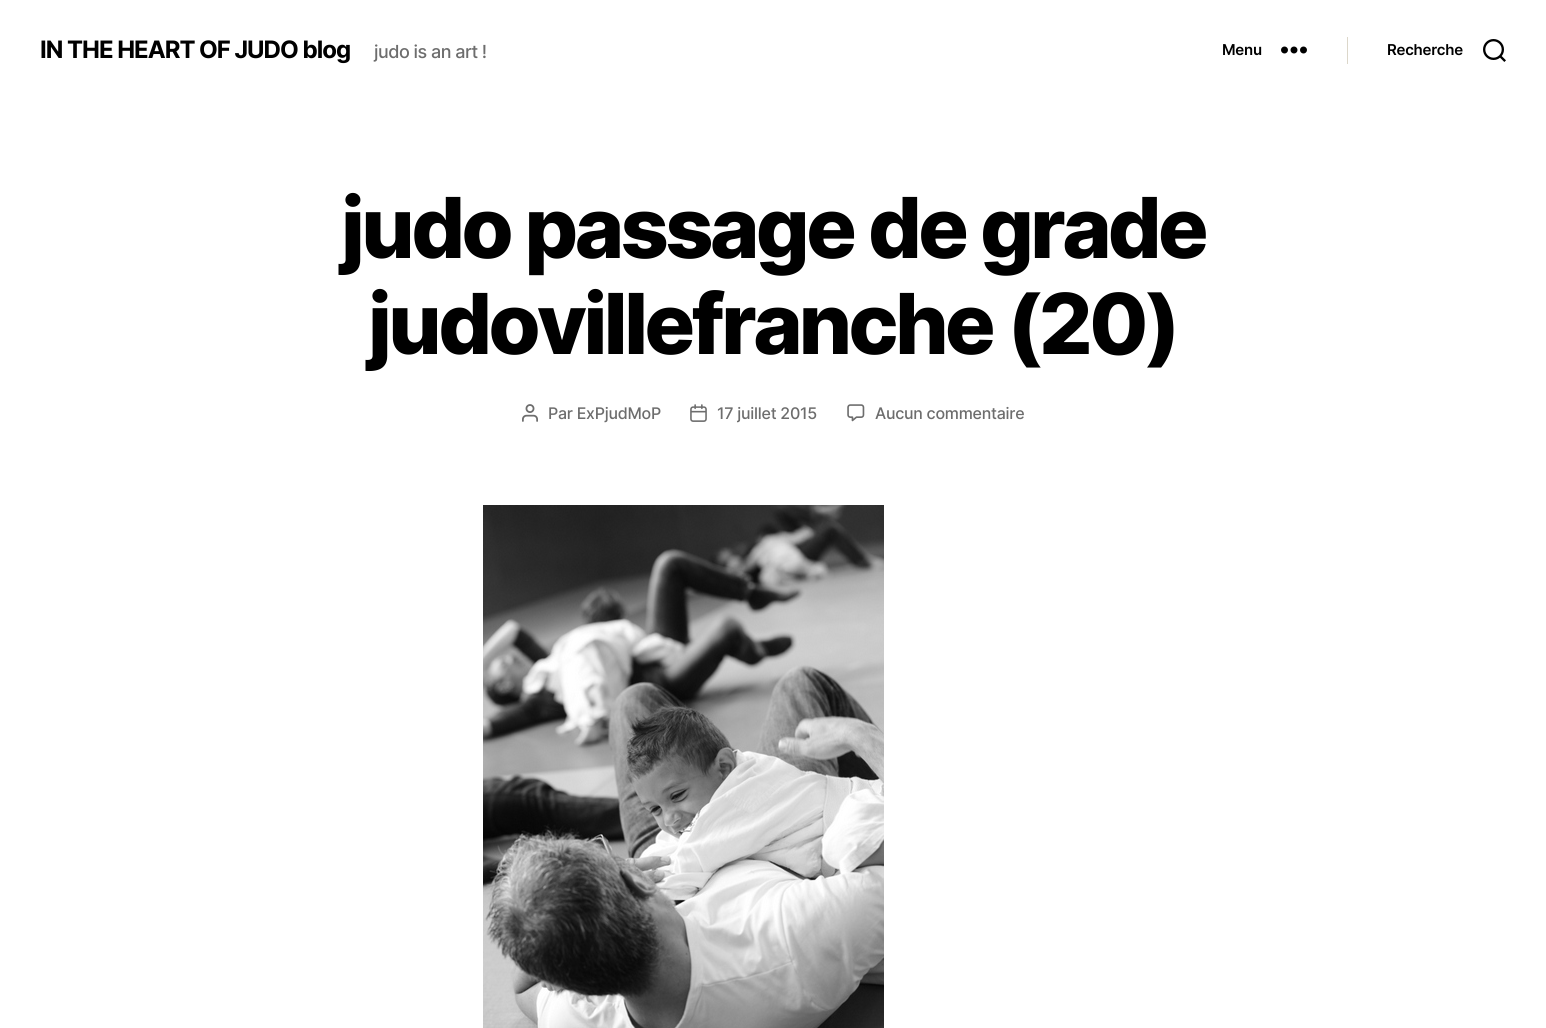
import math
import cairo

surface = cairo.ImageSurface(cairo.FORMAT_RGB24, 1546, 1028)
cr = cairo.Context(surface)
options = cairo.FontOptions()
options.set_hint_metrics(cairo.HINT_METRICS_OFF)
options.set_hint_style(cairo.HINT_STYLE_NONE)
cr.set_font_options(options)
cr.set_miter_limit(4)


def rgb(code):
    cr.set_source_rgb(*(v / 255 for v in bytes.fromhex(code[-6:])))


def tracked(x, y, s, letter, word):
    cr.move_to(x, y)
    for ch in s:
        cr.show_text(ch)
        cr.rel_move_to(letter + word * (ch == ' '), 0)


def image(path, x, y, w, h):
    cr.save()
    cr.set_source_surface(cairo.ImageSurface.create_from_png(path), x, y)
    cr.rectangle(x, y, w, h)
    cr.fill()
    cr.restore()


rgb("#ffffff")
cr.paint()
image("img/1.png", 1281, 46, 26, 8)
rgb("#dcd7ca")
cr.rectangle(1347, 37, 1, 27)
cr.fill()
image("img/2.png", 1483, 39, 23, 23)
image("img/3.png", 522, 404, 16, 18)
image("img/4.png", 690, 404, 17, 18)
image("img/5.png", 847, 404, 18, 18)
image("img/6.png", 483, 505, 401, 523)
cr.select_font_face("Inter", cairo.FONT_SLANT_NORMAL, cairo.FONT_WEIGHT_BOLD)
cr.set_font_size(24)
rgb("#000000")
tracked(40, 58, "IN THE HEART OF JUDO blog", -1, 0)
cr.select_font_face("Inter Medium")
cr.set_font_size(18)
rgb("#6d6d6d")
tracked(374, 58, "judo is an art !", -0.5, 0)
cr.select_font_face("Inter SemiBold")
cr.set_font_size(15)
rgb("#000000")
tracked(1222, 55, "Menu", -0.25, 0)
tracked(1387, 55, "Recherche", -0.25, 0)
cr.select_font_face("Inter ExtraBold")
cr.set_font_size(84)
tracked(341, 258, "judo passage de grade", -3.5, 0)
tracked(368, 354, "judovillefranche (20)", -3.5, 0)
cr.select_font_face("Inter Medium")
cr.set_font_size(16)
rgb("#6d6d6d")
for x, y, s in [
    (548, 419, "Par ExPjudMoP"),
    (717, 419, "17 juillet 2015"),
    (875, 419, "Aucun commentaire"),
]:
    tracked(x, y, s, -0.25, 0)
surface.write_to_png("page.png")
